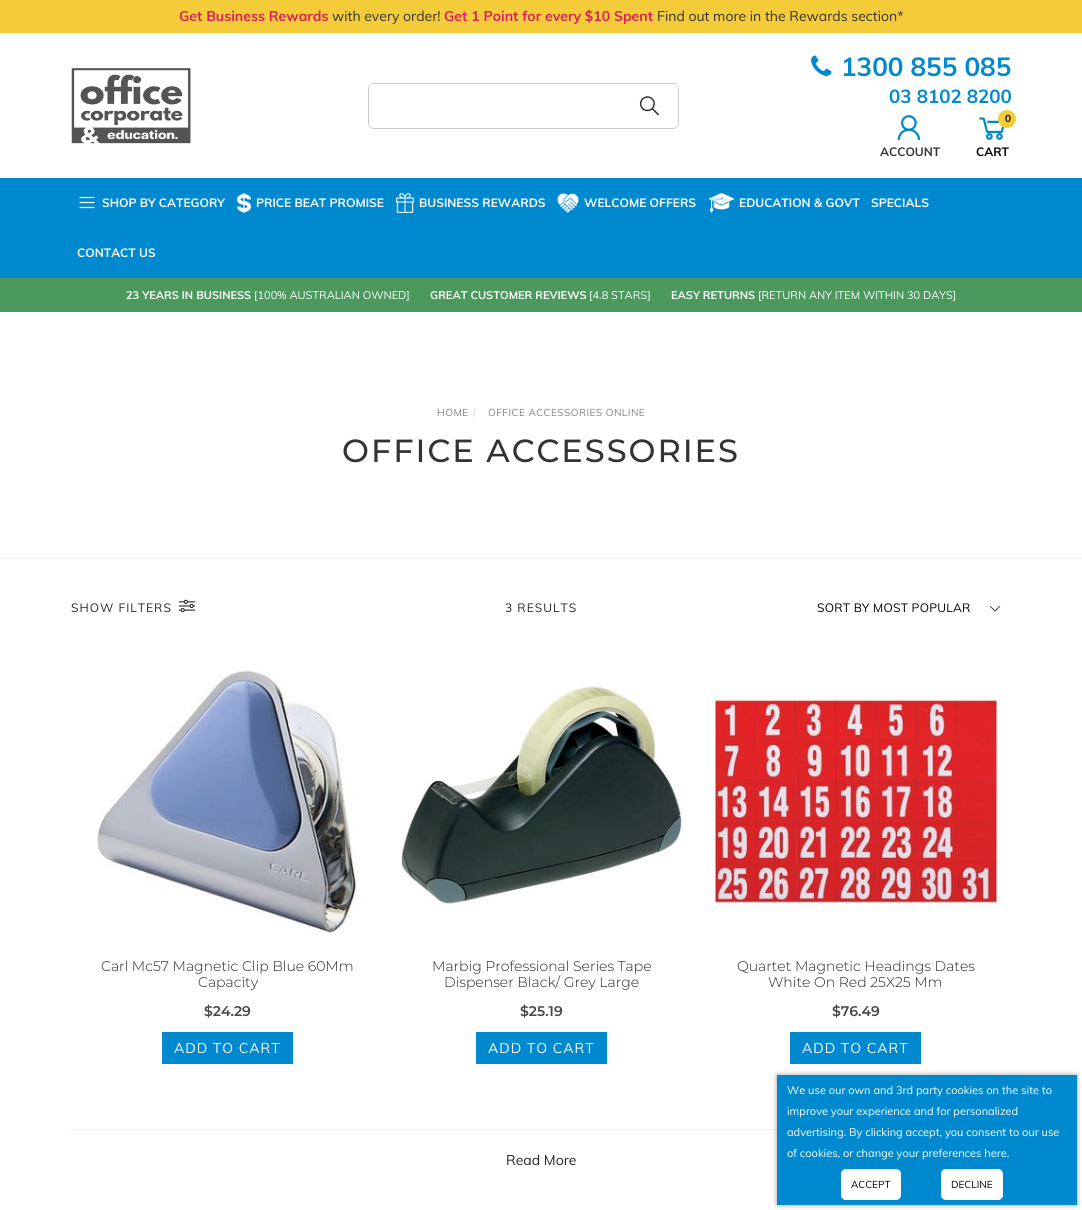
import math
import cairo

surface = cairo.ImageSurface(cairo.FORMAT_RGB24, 1082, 1210)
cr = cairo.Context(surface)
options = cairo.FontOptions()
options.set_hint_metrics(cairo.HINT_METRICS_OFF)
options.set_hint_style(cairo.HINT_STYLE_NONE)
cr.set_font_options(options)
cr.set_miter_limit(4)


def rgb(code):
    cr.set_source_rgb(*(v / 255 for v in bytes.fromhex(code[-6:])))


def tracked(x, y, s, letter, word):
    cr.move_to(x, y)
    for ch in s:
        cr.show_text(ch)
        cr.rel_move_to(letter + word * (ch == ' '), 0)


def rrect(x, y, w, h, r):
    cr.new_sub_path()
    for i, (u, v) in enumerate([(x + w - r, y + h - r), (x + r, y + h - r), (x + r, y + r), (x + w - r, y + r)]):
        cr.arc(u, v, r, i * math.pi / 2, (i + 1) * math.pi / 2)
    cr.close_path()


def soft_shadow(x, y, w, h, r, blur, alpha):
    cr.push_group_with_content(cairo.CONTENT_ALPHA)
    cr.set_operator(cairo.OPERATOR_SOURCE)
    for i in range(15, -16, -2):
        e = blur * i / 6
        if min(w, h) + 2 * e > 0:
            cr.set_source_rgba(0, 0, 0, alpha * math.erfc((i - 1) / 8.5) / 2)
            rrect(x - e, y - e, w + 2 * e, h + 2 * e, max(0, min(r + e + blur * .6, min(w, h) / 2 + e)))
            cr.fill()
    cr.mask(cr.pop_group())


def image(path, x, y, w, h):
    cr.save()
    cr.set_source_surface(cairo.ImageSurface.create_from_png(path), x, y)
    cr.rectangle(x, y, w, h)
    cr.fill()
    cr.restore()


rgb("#ffffff")
cr.paint()
rgb("#f4cb39")
cr.rectangle(0, 0, 1082, 33)
cr.fill()
image("img/1.png", 71, 68, 120, 76)
rgb("#cacaca")
cr.set_fill_rule(cairo.FILL_RULE_EVEN_ODD)
cr.new_path()
cr.move_to(374, 83)
cr.line_to(622, 83)
cr.line_to(622, 129)
cr.line_to(374, 129)
cr.curve_to(371, 129, 368, 126, 368, 123)
cr.line_to(368, 89)
cr.curve_to(368, 86, 371, 83, 374, 83)
cr.close_path()
cr.move_to(374, 84)
cr.line_to(622, 84)
cr.line_to(622, 128)
cr.line_to(374, 128)
cr.curve_to(371, 128, 369, 126, 369, 123)
cr.line_to(369, 89)
cr.curve_to(369, 86, 371, 84, 374, 84)
cr.close_path()
cr.fill()
rgb("#ffffff")
cr.new_path()
cr.move_to(621, 83)
cr.line_to(673, 83)
cr.curve_to(676.5, 83, 679, 85.5, 679, 89)
cr.line_to(679, 123)
cr.curve_to(679, 126.5, 676.5, 129, 673, 129)
cr.line_to(621, 129)
cr.close_path()
cr.fill()
rgb("#cacaca")
cr.new_path()
cr.move_to(621, 83)
cr.line_to(673, 83)
cr.curve_to(676, 83, 679, 86, 679, 89)
cr.line_to(679, 123)
cr.curve_to(679, 126, 676, 129, 673, 129)
cr.line_to(621, 129)
cr.close_path()
cr.move_to(621, 84)
cr.line_to(673, 84)
cr.curve_to(676, 84, 678, 86, 678, 89)
cr.line_to(678, 123)
cr.curve_to(678, 126, 676, 128, 673, 128)
cr.line_to(621, 128)
cr.close_path()
cr.fill()
image("img/2.png", 639, 96, 21, 20)
image("img/3.png", 811, 55, 21, 21)
image("img/4.png", 897, 115, 24, 25)
image("img/5.png", 979, 117, 26, 23)
rgb("#f4cb39")
cr.arc(1007, 119, 9, 0, 2 * math.pi)
cr.fill()
rgb("#0089cf")
cr.rectangle(0, 178, 1082, 100)
cr.fill()
image("img/6.png", 79, 196, 16, 13)
image("img/7.png", 237, 193, 14, 20)
image("img/8.png", 396, 193, 18, 20)
image("img/9.png", 557, 193, 22, 20)
image("img/10.png", 709, 193, 25, 20)
rgb("#4c995e")
cr.rectangle(0, 278, 1082, 34)
cr.fill()
rgb("#eeeeee")
cr.rectangle(0, 558, 1082, 1)
cr.fill()
image("img/11.png", 178, 599, 18, 14)
image("img/12.png", 989, 605, 12, 7)
image("img/13.png", 97, 667, 266, 266)
rgb("#0089cf")
cr.rectangle(162, 1032, 131, 32)
cr.fill()
image("img/14.png", 400, 684, 283, 223)
cr.rectangle(476, 1032, 131, 32)
cr.fill()
image("img/15.png", 714, 691, 283, 216)
cr.rectangle(790, 1032, 131, 32)
cr.fill()
rgb("#eeeeee")
cr.rectangle(71, 1129, 706, 1)
cr.fill()
rgb("#000000")
soft_shadow(777, 1075, 300, 130, 0, 2.5, 0.4)
rgb("#0089cf")
cr.rectangle(777, 1075, 300, 130)
cr.fill()
rgb("#ffffff")
rrect(841, 1169, 60, 31, 5)
cr.fill()
rrect(941, 1169, 62, 31, 5)
cr.fill()
cr.select_font_face("Muli", cairo.FONT_SLANT_NORMAL, cairo.FONT_WEIGHT_BOLD)
cr.set_font_size(14)
rgb("#d7225e")
cr.move_to(179, 21)
cr.show_text("Get Business Rewards")
cr.select_font_face("Muli")
rgb("#333333")
cr.move_to(332, 21)
cr.show_text("with every order!")
cr.select_font_face("Muli", cairo.FONT_SLANT_NORMAL, cairo.FONT_WEIGHT_BOLD)
rgb("#d7225e")
cr.move_to(444, 21)
cr.show_text("Get 1 Point for every $10 Spent")
cr.select_font_face("Muli")
rgb("#333333")
cr.move_to(657, 21)
cr.show_text("Find out more in the Rewards section*")
cr.select_font_face("Muli", cairo.FONT_SLANT_NORMAL, cairo.FONT_WEIGHT_BOLD)
cr.set_font_size(26)
rgb("#0089cf")
cr.move_to(841, 76)
cr.show_text("1300 855 085")
cr.set_font_size(18.75)
cr.move_to(889, 103)
cr.show_text("03 8102 8200")
cr.set_font_size(12)
rgb("#333333")
cr.move_to(880, 156)
cr.show_text("ACCOUNT")
cr.set_font_size(10)
rgb("#000000")
tracked(1005, 122, "0", -1, 0)
cr.set_font_size(12)
cr.move_to(976, 156)
cr.show_text("CART")
rgb("#ffffff")
for x, y, s in [
    (102, 207, "SHOP BY CATEGORY"),
    (256, 207, "PRICE BEAT PROMISE"),
    (419, 207, "BUSINESS REWARDS"),
    (584, 207, "WELCOME OFFERS"),
    (739, 207, "EDUCATION & GOVT"),
    (871, 207, "SPECIALS"),
    (77, 257, "CONTACT US"),
]:
    cr.move_to(x, y)
    cr.show_text(s)
cr.set_font_size(11)
cr.move_to(126, 299)
cr.show_text("23 YEARS IN BUSINESS")
cr.select_font_face("Muli")
cr.move_to(254, 299)
cr.show_text("[100% AUSTRALIAN OWNED]")
cr.select_font_face("Muli", cairo.FONT_SLANT_NORMAL, cairo.FONT_WEIGHT_BOLD)
cr.move_to(430, 299)
cr.show_text("GREAT CUSTOMER REVIEWS")
cr.select_font_face("Muli")
cr.move_to(589, 299)
cr.show_text("[4.8 STARS]")
cr.select_font_face("Muli", cairo.FONT_SLANT_NORMAL, cairo.FONT_WEIGHT_BOLD)
cr.move_to(671, 299)
cr.show_text("EASY RETURNS")
cr.select_font_face("Muli")
cr.move_to(758, 299)
cr.show_text("[RETURN ANY ITEM WITHIN 30 DAYS]")
cr.set_font_size(10)
rgb("#828282")
tracked(437, 416, "HOME", 0.5, 0)
rgb("#cccccc")
tracked(473, 416, "/", 0.5, 0)
rgb("#828282")
tracked(488, 416, "OFFICE ACCESSORIES ONLINE", 0.5, 0)
cr.select_font_face("Montserrat Medium")
cr.set_font_size(32)
rgb("#333333")
tracked(342, 462, "OFFICE ACCESSORIES", 2, 0)
cr.select_font_face("Muli")
cr.set_font_size(12)
rgb("#252525")
tracked(71, 612, "SHOW FILTERS", 1, 0)
tracked(505, 612, "3 RESULTS", 1, 0)
rgb("#000000")
tracked(817, 612, "SORT BY MOST POPULAR", 0.25, 0)
cr.select_font_face("Montserrat Light")
cr.set_font_size(14)
rgb("#252525")
cr.move_to(101, 971)
cr.show_text("Carl Mc57 Magnetic Clip Blue 60Mm")
cr.move_to(198, 987)
cr.show_text("Capacity")
cr.select_font_face("Montserrat SemiBold")
rgb("#484848")
cr.move_to(204, 1016)
cr.show_text("$24.29")
cr.select_font_face("Muli")
rgb("#ffffff")
tracked(174, 1053, "ADD TO CART", 1, 0)
cr.select_font_face("Montserrat Light")
rgb("#252525")
cr.move_to(432, 971)
cr.show_text("Marbig Professional Series Tape")
cr.move_to(444, 987)
cr.show_text("Dispenser Black/ Grey Large")
cr.select_font_face("Montserrat SemiBold")
rgb("#484848")
cr.move_to(520, 1016)
cr.show_text("$25.19")
cr.select_font_face("Muli")
rgb("#ffffff")
tracked(488, 1053, "ADD TO CART", 1, 0)
cr.select_font_face("Montserrat Light")
rgb("#252525")
cr.move_to(737, 971)
cr.show_text("Quartet Magnetic Headings Dates")
cr.move_to(768, 987)
cr.show_text("White On Red 25X25 Mm")
cr.select_font_face("Montserrat SemiBold")
rgb("#484848")
cr.move_to(832, 1016)
cr.show_text("$76.49")
cr.select_font_face("Muli")
rgb("#ffffff")
tracked(802, 1053, "ADD TO CART", 1, 0)
rgb("#252525")
cr.move_to(506, 1165)
cr.show_text("Read More")
cr.set_font_size(11)
rgb("#ffffff")
for x, y, s in [
    (787, 1094, "We use our own and 3rd party cookies on the site to"),
    (787, 1115, "improve your experience and for personalized"),
    (787, 1136, "advertising. By clicking accept, you consent to our use"),
    (787, 1157, "of cookies, or change your preferences here."),
]:
    cr.move_to(x, y)
    cr.show_text(s)
cr.set_font_size(10)
rgb("#000000")
cr.move_to(851, 1188)
cr.show_text("ACCEPT")
cr.move_to(951, 1188)
cr.show_text("DECLINE")
surface.write_to_png("page.png")
